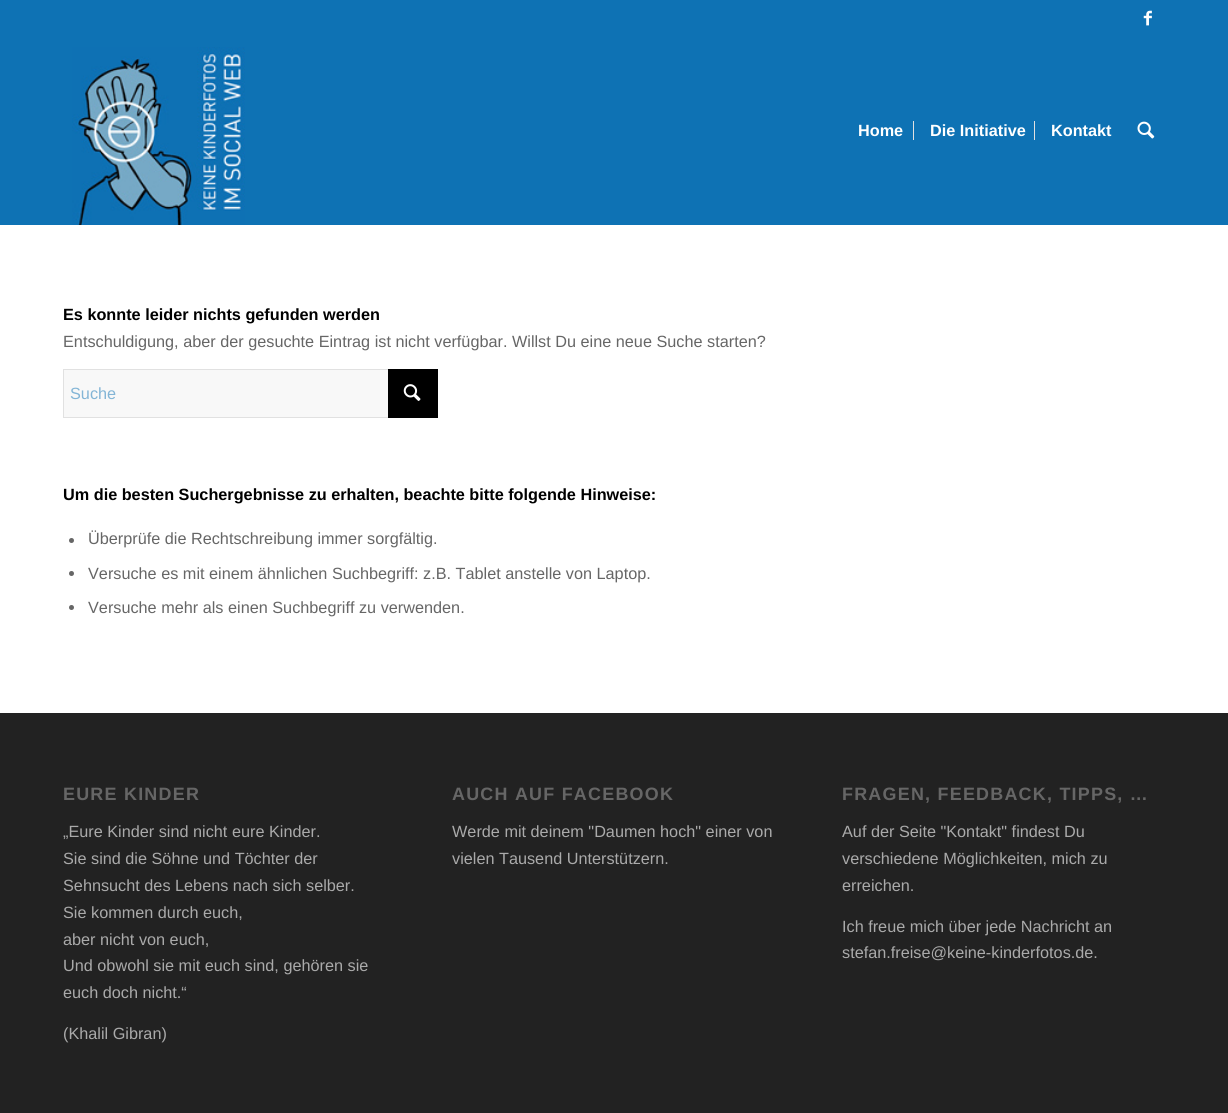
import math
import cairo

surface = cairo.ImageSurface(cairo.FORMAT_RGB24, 1228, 1113)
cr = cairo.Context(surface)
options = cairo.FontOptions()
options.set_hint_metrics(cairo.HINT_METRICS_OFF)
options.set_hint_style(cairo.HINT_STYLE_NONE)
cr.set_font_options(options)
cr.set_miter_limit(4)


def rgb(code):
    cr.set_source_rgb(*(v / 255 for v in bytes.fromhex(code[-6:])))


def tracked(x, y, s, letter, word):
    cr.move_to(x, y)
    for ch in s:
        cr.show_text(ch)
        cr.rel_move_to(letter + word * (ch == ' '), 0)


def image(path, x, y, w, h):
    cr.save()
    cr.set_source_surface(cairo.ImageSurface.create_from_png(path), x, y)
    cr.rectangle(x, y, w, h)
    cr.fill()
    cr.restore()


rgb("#ffffff")
cr.paint()
rgb("#0e72b4")
cr.rectangle(0, 0, 1228, 225)
cr.fill()
image("img/1.png", 1143, 10, 9, 16)
image("img/2.png", 72, 47, 173, 178)
rgb("#e1e1e1")
cr.rectangle(913, 121, 1, 19)
cr.fill()
cr.rectangle(1034, 121, 1, 19)
cr.fill()
image("img/3.png", 1137, 121, 18, 18)
rgb("#f8f8f8")
cr.rectangle(64, 370, 324, 47)
cr.fill()
cr.rectangle(63.5, 369.5, 374, 48)
rgb("#e1e1e1")
cr.set_line_width(1)
cr.stroke()
rgb("#000000")
cr.rectangle(388, 369, 50, 49)
cr.fill()
image("img/4.png", 403, 384, 18, 17)
rgb("#666666")
cr.arc(71.5, 540.5, 2.5, 0, 2 * math.pi)
cr.fill()
cr.arc(71.5, 573.5, 2.5, 0, 2 * math.pi)
cr.fill()
cr.arc(71.5, 607.5, 2.5, 0, 2 * math.pi)
cr.fill()
rgb("#222222")
cr.rectangle(0, 713, 1228, 400)
cr.fill()
cr.select_font_face("Liberation Sans", cairo.FONT_SLANT_NORMAL, cairo.FONT_WEIGHT_BOLD)
cr.set_font_size(16.25)
rgb("#ffffff")
for x, y, s in [
    (858, 136, "Home"),
    (930, 136, "Die Initiative"),
    (1051, 136, "Kontakt"),
]:
    cr.move_to(x, y)
    cr.show_text(s)
rgb("#000000")
cr.move_to(63, 320)
cr.show_text("Es konnte leider nichts gefunden werden")
cr.select_font_face("Liberation Sans")
rgb("#666666")
cr.move_to(63, 347)
cr.show_text("Entschuldigung, aber der gesuchte Eintrag ist nicht verfügbar. Willst Du eine neue Suche starten?")
rgb("#83b5d6")
cr.move_to(70, 399)
cr.show_text("Suche")
cr.select_font_face("Liberation Sans", cairo.FONT_SLANT_NORMAL, cairo.FONT_WEIGHT_BOLD)
rgb("#000000")
cr.move_to(63, 500)
cr.show_text("Um die besten Suchergebnisse zu erhalten, beachte bitte folgende Hinweise:")
cr.select_font_face("Liberation Sans")
rgb("#666666")
for x, y, s in [
    (88, 544, "Überprüfe die Rechtschreibung immer sorgfältig."),
    (88, 579, "Versuche es mit einem ähnlichen Suchbegriff: z.B. Tablet anstelle von Laptop."),
    (88, 613, "Versuche mehr als einen Suchbegriff zu verwenden."),
]:
    cr.move_to(x, y)
    cr.show_text(s)
cr.select_font_face("Liberation Sans", cairo.FONT_SLANT_NORMAL, cairo.FONT_WEIGHT_BOLD)
cr.set_font_size(17.9)
tracked(63, 800, "EURE KINDER", 1.25, 0)
cr.select_font_face("Liberation Sans")
cr.set_font_size(16.25)
rgb("#aaaaaa")
for x, y, s in [
    (63, 837, "„Eure Kinder sind nicht eure Kinder."),
    (63, 864, "Sie sind die Söhne und Töchter der"),
    (63, 891, "Sehnsucht des Lebens nach sich selber."),
    (63, 918, "Sie kommen durch euch,"),
    (63, 945, "aber nicht von euch,"),
    (63, 971, "Und obwohl sie mit euch sind, gehören sie"),
    (63, 998, "euch doch nicht.“"),
    (63, 1039, "(Khalil Gibran)"),
]:
    cr.move_to(x, y)
    cr.show_text(s)
cr.select_font_face("Liberation Sans", cairo.FONT_SLANT_NORMAL, cairo.FONT_WEIGHT_BOLD)
cr.set_font_size(17.9)
rgb("#666666")
tracked(452, 800, "AUCH AUF FACEBOOK", 1.25, 0)
cr.select_font_face("Liberation Sans")
cr.set_font_size(16.25)
rgb("#aaaaaa")
cr.move_to(452, 837)
cr.show_text("Werde mit deinem \"Daumen hoch\" einer von")
cr.move_to(452, 864)
cr.show_text("vielen Tausend Unterstützern.")
cr.select_font_face("Liberation Sans", cairo.FONT_SLANT_NORMAL, cairo.FONT_WEIGHT_BOLD)
cr.set_font_size(17.9)
rgb("#666666")
tracked(842, 800, "FRAGEN, FEEDBACK, TIPPS, …", 1.25, 0)
cr.select_font_face("Liberation Sans")
cr.set_font_size(16.25)
rgb("#aaaaaa")
for x, y, s in [
    (842, 837, "Auf der Seite \"Kontakt\" findest Du"),
    (842, 864, "verschiedene Möglichkeiten, mich zu"),
    (842, 891, "erreichen."),
    (842, 932, "Ich freue mich über jede Nachricht an"),
    (842, 958, "stefan.freise@keine-kinderfotos.de."),
]:
    cr.move_to(x, y)
    cr.show_text(s)
surface.write_to_png("page.png")
